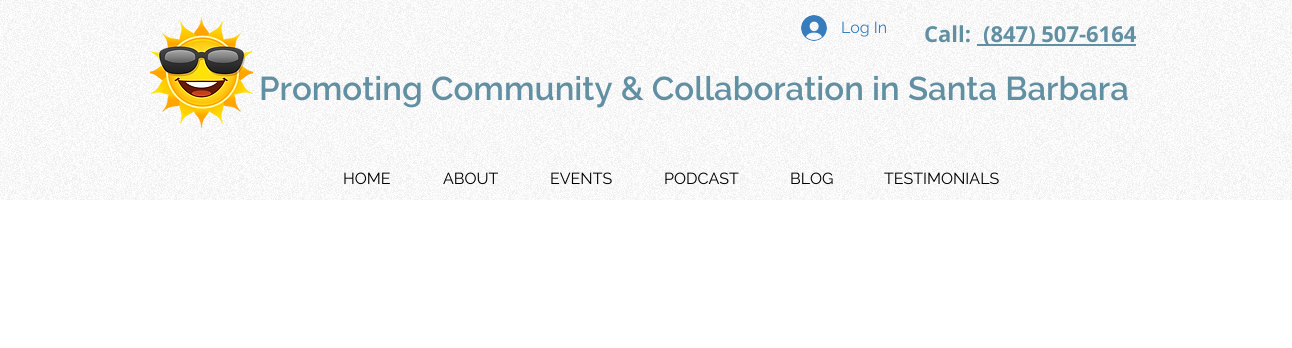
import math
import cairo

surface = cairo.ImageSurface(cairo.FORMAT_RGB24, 1292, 348)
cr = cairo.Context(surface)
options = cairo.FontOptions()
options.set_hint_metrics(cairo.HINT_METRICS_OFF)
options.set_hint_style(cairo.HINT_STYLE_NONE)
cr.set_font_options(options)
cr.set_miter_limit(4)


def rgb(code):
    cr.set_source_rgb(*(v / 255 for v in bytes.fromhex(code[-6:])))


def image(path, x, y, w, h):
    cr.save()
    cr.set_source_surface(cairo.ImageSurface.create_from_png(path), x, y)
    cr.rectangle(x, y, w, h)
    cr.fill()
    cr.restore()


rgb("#ffffff")
cr.paint()
image("img/1.png", 0, 0, 1292, 200)
image("img/2.png", 150, 17, 103, 111)
image("img/3.png", 801, 15, 26, 26)
rgb("#6290a3")
cr.rectangle(977, 44, 159, 2)
cr.fill()
cr.select_font_face("Raleway")
cr.set_font_size(16)
rgb("#377dbd")
cr.move_to(841, 33)
cr.show_text("Log In")
cr.select_font_face("Open Sans", cairo.FONT_SLANT_NORMAL, cairo.FONT_WEIGHT_BOLD)
cr.set_font_size(22)
rgb("#6290a3")
cr.move_to(924, 42)
cr.show_text("Call:")
cr.move_to(983, 42)
cr.show_text("(847) 507-6164")
cr.select_font_face("Raleway SemiBold")
cr.set_font_size(33)
cr.move_to(259, 100)
cr.show_text("Promoting Community & Collaboration in Santa Barbara")
cr.select_font_face("Raleway")
cr.set_font_size(16)
rgb("#000000")
for x, y, s in [
    (343, 184, "HOME"),
    (443, 184, "ABOUT"),
    (550, 184, "EVENTS"),
    (664, 184, "PODCAST"),
    (790, 184, "BLOG"),
    (884, 184, "TESTIMONIALS"),
]:
    cr.move_to(x, y)
    cr.show_text(s)
surface.write_to_png("page.png")
